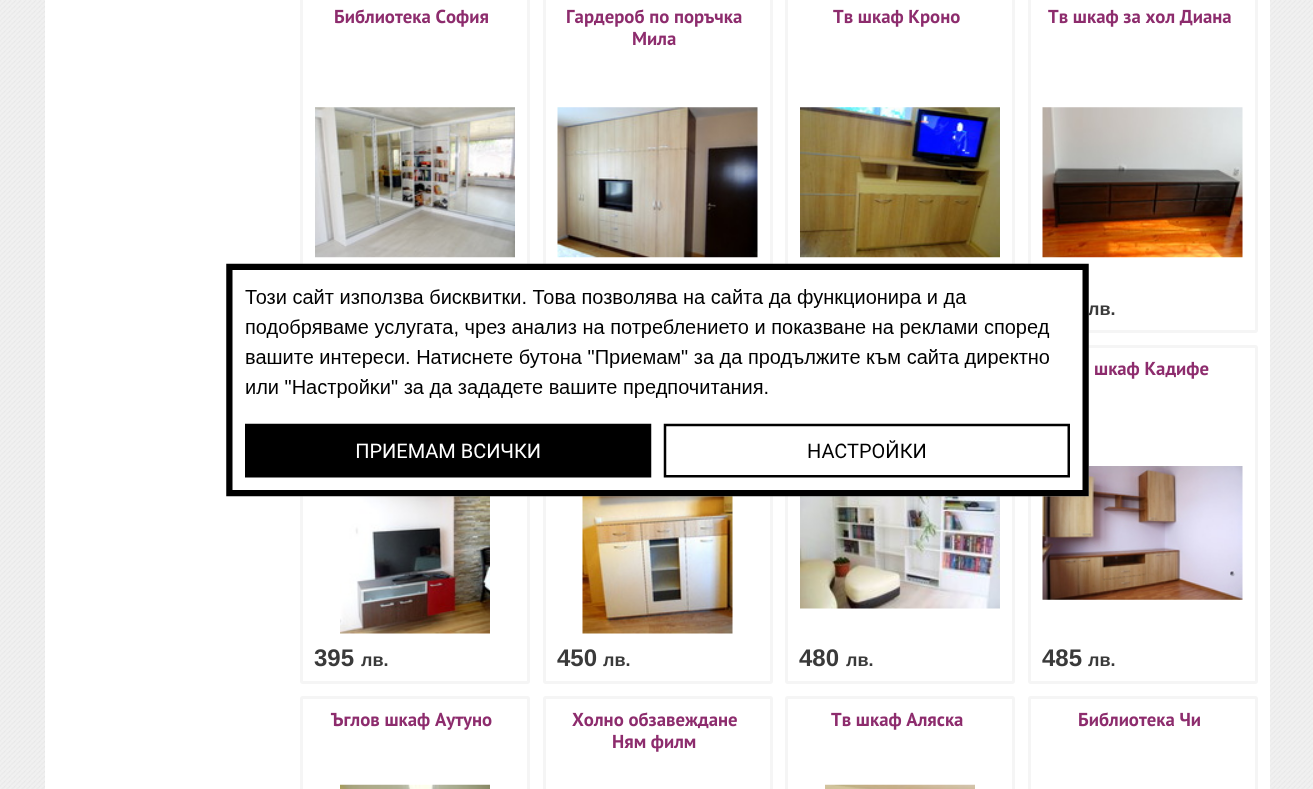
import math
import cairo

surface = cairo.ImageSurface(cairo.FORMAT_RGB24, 1313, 789)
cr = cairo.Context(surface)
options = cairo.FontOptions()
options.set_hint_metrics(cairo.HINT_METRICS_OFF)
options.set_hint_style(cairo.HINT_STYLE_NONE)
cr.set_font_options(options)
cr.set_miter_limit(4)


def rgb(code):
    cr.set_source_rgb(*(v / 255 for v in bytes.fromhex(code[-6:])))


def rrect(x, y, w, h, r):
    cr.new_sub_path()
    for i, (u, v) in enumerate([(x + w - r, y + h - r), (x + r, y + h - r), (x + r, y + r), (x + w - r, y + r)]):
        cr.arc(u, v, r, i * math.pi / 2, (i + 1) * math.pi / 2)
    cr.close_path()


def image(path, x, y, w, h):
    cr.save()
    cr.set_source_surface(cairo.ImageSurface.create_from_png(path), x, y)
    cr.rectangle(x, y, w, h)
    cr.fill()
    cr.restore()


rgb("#ffffff")
cr.paint()
image("img/1.png", 0, 0, 1313, 789)
rgb("#ffffff")
cr.rectangle(45, 0, 1225, 789)
cr.fill()
cr.rectangle(301.5, -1.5, 227, 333)
rgb("#f5f5f5")
cr.set_line_width(3)
cr.stroke()
image("img/2.png", 315, 107, 200, 151)
cr.rectangle(544.5, -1.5, 227, 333)
cr.stroke()
image("img/3.png", 557, 107, 201, 151)
cr.rectangle(786.5, -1.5, 227, 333)
cr.stroke()
image("img/4.png", 800, 107, 200, 151)
rrect(1029.5, -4.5, 227, 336, 1)
cr.stroke()
image("img/5.png", 1042, 107, 201, 151)
rrect(301.5, 346.5, 227, 336, 1)
cr.stroke()
image("img/6.png", 340, 496, 150, 138)
rrect(544.5, 346.5, 227, 336, 1)
cr.stroke()
image("img/7.png", 582, 496, 151, 138)
rrect(786.5, 346.5, 227, 336, 1)
cr.stroke()
image("img/8.png", 800, 496, 200, 113)
rrect(1029.5, 346.5, 227, 336, 1)
cr.stroke()
image("img/9.png", 1042, 466, 201, 134)
rrect(301.5, 697.5, 227, 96, 1)
cr.stroke()
image("img/10.png", 340, 784, 150, 5)
rrect(544.5, 697.5, 227, 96, 1)
cr.stroke()
rrect(786.5, 697.5, 227, 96, 1)
cr.stroke()
image("img/11.png", 825, 784, 150, 5)
rrect(1029.5, 697.5, 227, 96, 1)
cr.stroke()
cr.select_font_face("PT Sans", cairo.FONT_SLANT_NORMAL, cairo.FONT_WEIGHT_BOLD)
cr.set_font_size(18.75)
rgb("#8d2c6d")
for x, y, s in [
    (334, 23, "Библиотека София"),
    (566, 23, "Гардероб по поръчка"),
    (632, 45, "Мила"),
    (833, 23, "Тв шкаф Кроно"),
    (1048, 23, "Тв шкаф за хол Диана"),
]:
    cr.move_to(x, y)
    cr.show_text(s)
cr.select_font_face("Liberation Sans", cairo.FONT_SLANT_NORMAL, cairo.FONT_WEIGHT_BOLD)
cr.set_font_size(18)
rgb("#3a3a3a")
cr.move_to(1088, 315)
cr.show_text("лв.")
cr.set_font_size(24)
cr.move_to(314, 666)
cr.show_text("395")
cr.set_font_size(18)
cr.move_to(361, 666)
cr.show_text("лв.")
cr.set_font_size(24)
cr.move_to(557, 666)
cr.show_text("450")
cr.set_font_size(18)
cr.move_to(603, 666)
cr.show_text("лв.")
cr.set_font_size(24)
cr.move_to(799, 666)
cr.show_text("480")
cr.set_font_size(18)
cr.move_to(846, 666)
cr.show_text("лв.")
cr.select_font_face("PT Sans", cairo.FONT_SLANT_NORMAL, cairo.FONT_WEIGHT_BOLD)
cr.set_font_size(18.75)
rgb("#8d2c6d")
cr.move_to(1094, 375)
cr.show_text("шкаф Кадифе")
cr.select_font_face("Liberation Sans", cairo.FONT_SLANT_NORMAL, cairo.FONT_WEIGHT_BOLD)
cr.set_font_size(24)
rgb("#3a3a3a")
cr.move_to(1042, 666)
cr.show_text("485")
cr.set_font_size(18)
cr.move_to(1088, 666)
cr.show_text("лв.")
cr.select_font_face("PT Sans", cairo.FONT_SLANT_NORMAL, cairo.FONT_WEIGHT_BOLD)
cr.set_font_size(18.75)
rgb("#8d2c6d")
for x, y, s in [
    (331, 726, "Ъглов шкаф Аутуно"),
    (572, 726, "Холно обзавеждане"),
    (612, 748, "Ням филм"),
    (831, 726, "Тв шкаф Аляска"),
    (1078, 726, "Библиотека Чи"),
]:
    cr.move_to(x, y)
    cr.show_text(s)
image("img/12.png", 226, 263, 863, 234)
surface.write_to_png("page.png")
